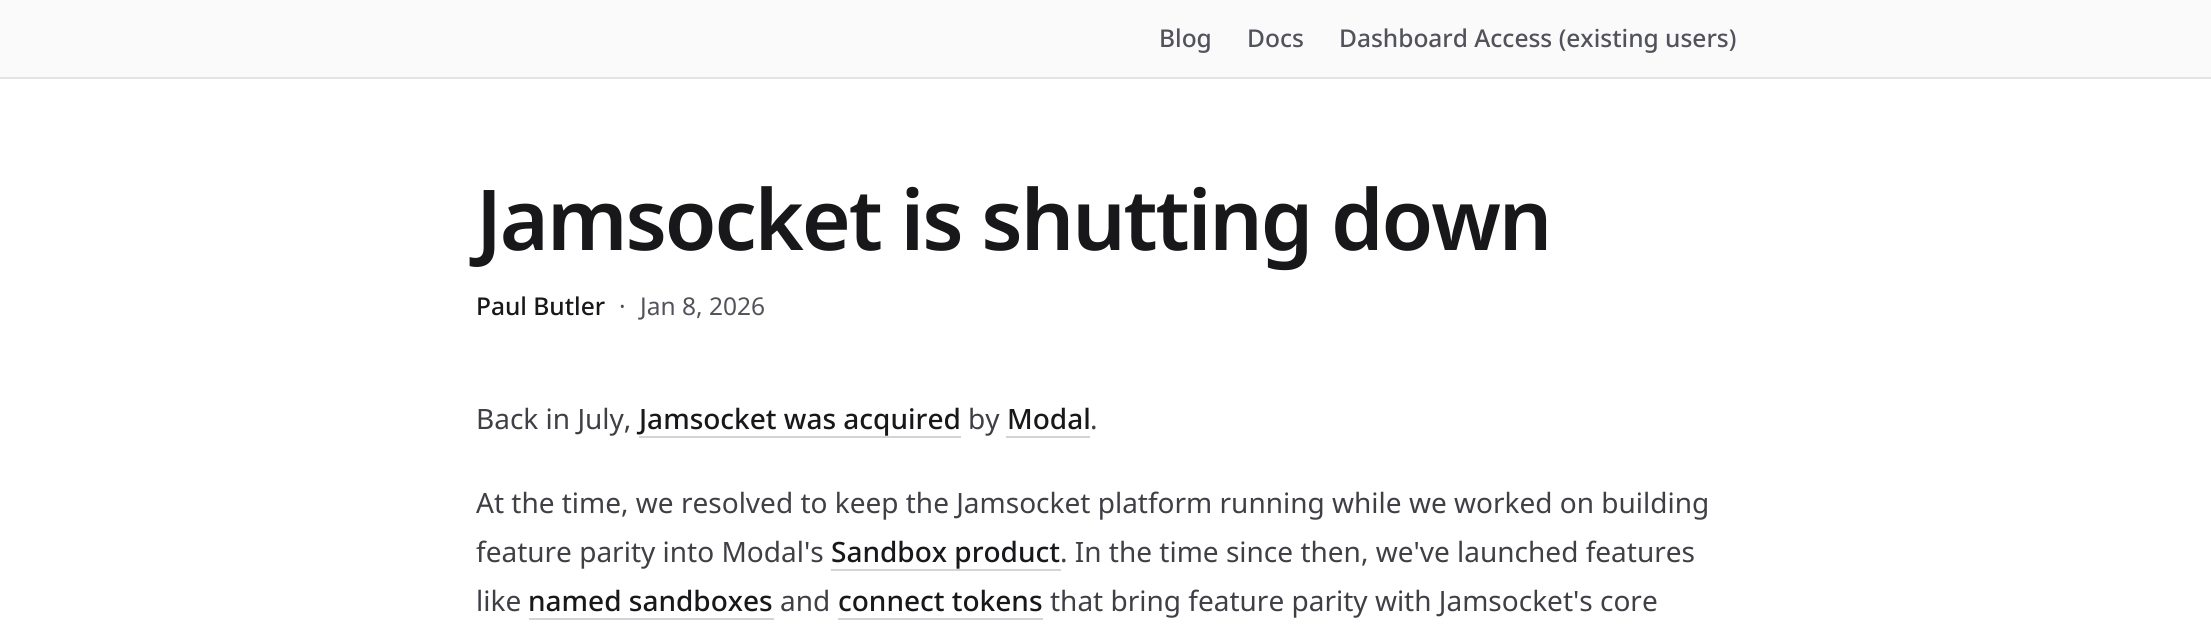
import math
import cairo

surface = cairo.ImageSurface(cairo.FORMAT_RGB24, 2211, 643)
cr = cairo.Context(surface)
options = cairo.FontOptions()
options.set_hint_metrics(cairo.HINT_METRICS_OFF)
options.set_hint_style(cairo.HINT_STYLE_NONE)
cr.set_font_options(options)
cr.set_miter_limit(4)


def rgb(code):
    cr.set_source_rgb(*(v / 255 for v in bytes.fromhex(code[-6:])))


def tracked(x, y, s, letter, word):
    cr.move_to(x, y)
    for ch in s:
        cr.show_text(ch)
        cr.rel_move_to(letter + word * (ch == ' '), 0)


rgb("#ffffff")
cr.paint()
for x, y, w, h, color in [
    (0, 0, 2211, 77, "#fafafa"),
    (0, 77, 2211, 2, "#e4e4e7"),
    (639, 436, 322, 2, "#d4d4d8"),
    (1006, 436, 84, 2, "#d4d4d8"),
    (831, 569, 230, 2, "#d4d4d8"),
    (529, 618, 245, 2, "#d4d4d8"),
    (838, 618, 205, 2, "#d4d4d8"),
]:
    rgb(color)
    cr.rectangle(x, y, w, h)
    cr.fill()
cr.select_font_face("Noto Sans Medium")
cr.set_font_size(24.5)
rgb("#52525b")
for x, y, s in [
    (1159, 47, "Blog"),
    (1247, 47, "Docs"),
    (1339, 47, "Dashboard Access (existing users)"),
]:
    cr.move_to(x, y)
    cr.show_text(s)
cr.select_font_face("Noto Sans SemiBold")
cr.set_font_size(84)
rgb("#18181b")
tracked(476, 250, "Jamsocket is shutting down", -2.1, 0)
cr.select_font_face("Noto Sans Medium")
cr.set_font_size(24.5)
cr.move_to(476, 315)
cr.show_text("Paul Butler")
cr.select_font_face("Noto Sans")
rgb("#52525b")
cr.move_to(619, 315)
cr.show_text("·")
cr.move_to(640, 315)
cr.show_text("Jan 8, 2026")
cr.set_font_size(28)
rgb("#3f3f46")
cr.move_to(476, 429)
cr.show_text("Back in July,")
cr.select_font_face("Noto Sans Medium")
rgb("#18181b")
cr.move_to(639, 429)
cr.show_text("Jamsocket was acquired")
cr.select_font_face("Noto Sans")
rgb("#3f3f46")
cr.move_to(968, 429)
cr.show_text("by")
cr.select_font_face("Noto Sans Medium")
rgb("#18181b")
cr.move_to(1007, 429)
cr.show_text("Modal")
cr.select_font_face("Noto Sans")
rgb("#3f3f46")
for x, y, s in [
    (1090, 429, "."),
    (476, 513, "At the time, we resolved to keep the Jamsocket platform running while we worked on building"),
    (476, 562, "feature parity into Modal's"),
]:
    cr.move_to(x, y)
    cr.show_text(s)
cr.select_font_face("Noto Sans Medium")
rgb("#18181b")
cr.move_to(831, 562)
cr.show_text("Sandbox product")
cr.select_font_face("Noto Sans")
rgb("#3f3f46")
cr.move_to(1060, 562)
cr.show_text(". In the time since then, we've launched features")
cr.move_to(476, 611)
cr.show_text("like")
cr.select_font_face("Noto Sans Medium")
rgb("#18181b")
cr.move_to(528, 611)
cr.show_text("named sandboxes")
cr.select_font_face("Noto Sans")
rgb("#3f3f46")
cr.move_to(780, 611)
cr.show_text("and")
cr.select_font_face("Noto Sans Medium")
rgb("#18181b")
cr.move_to(838, 611)
cr.show_text("connect tokens")
cr.select_font_face("Noto Sans")
rgb("#3f3f46")
cr.move_to(1050, 611)
cr.show_text("that bring feature parity with Jamsocket's core")
surface.write_to_png("page.png")
